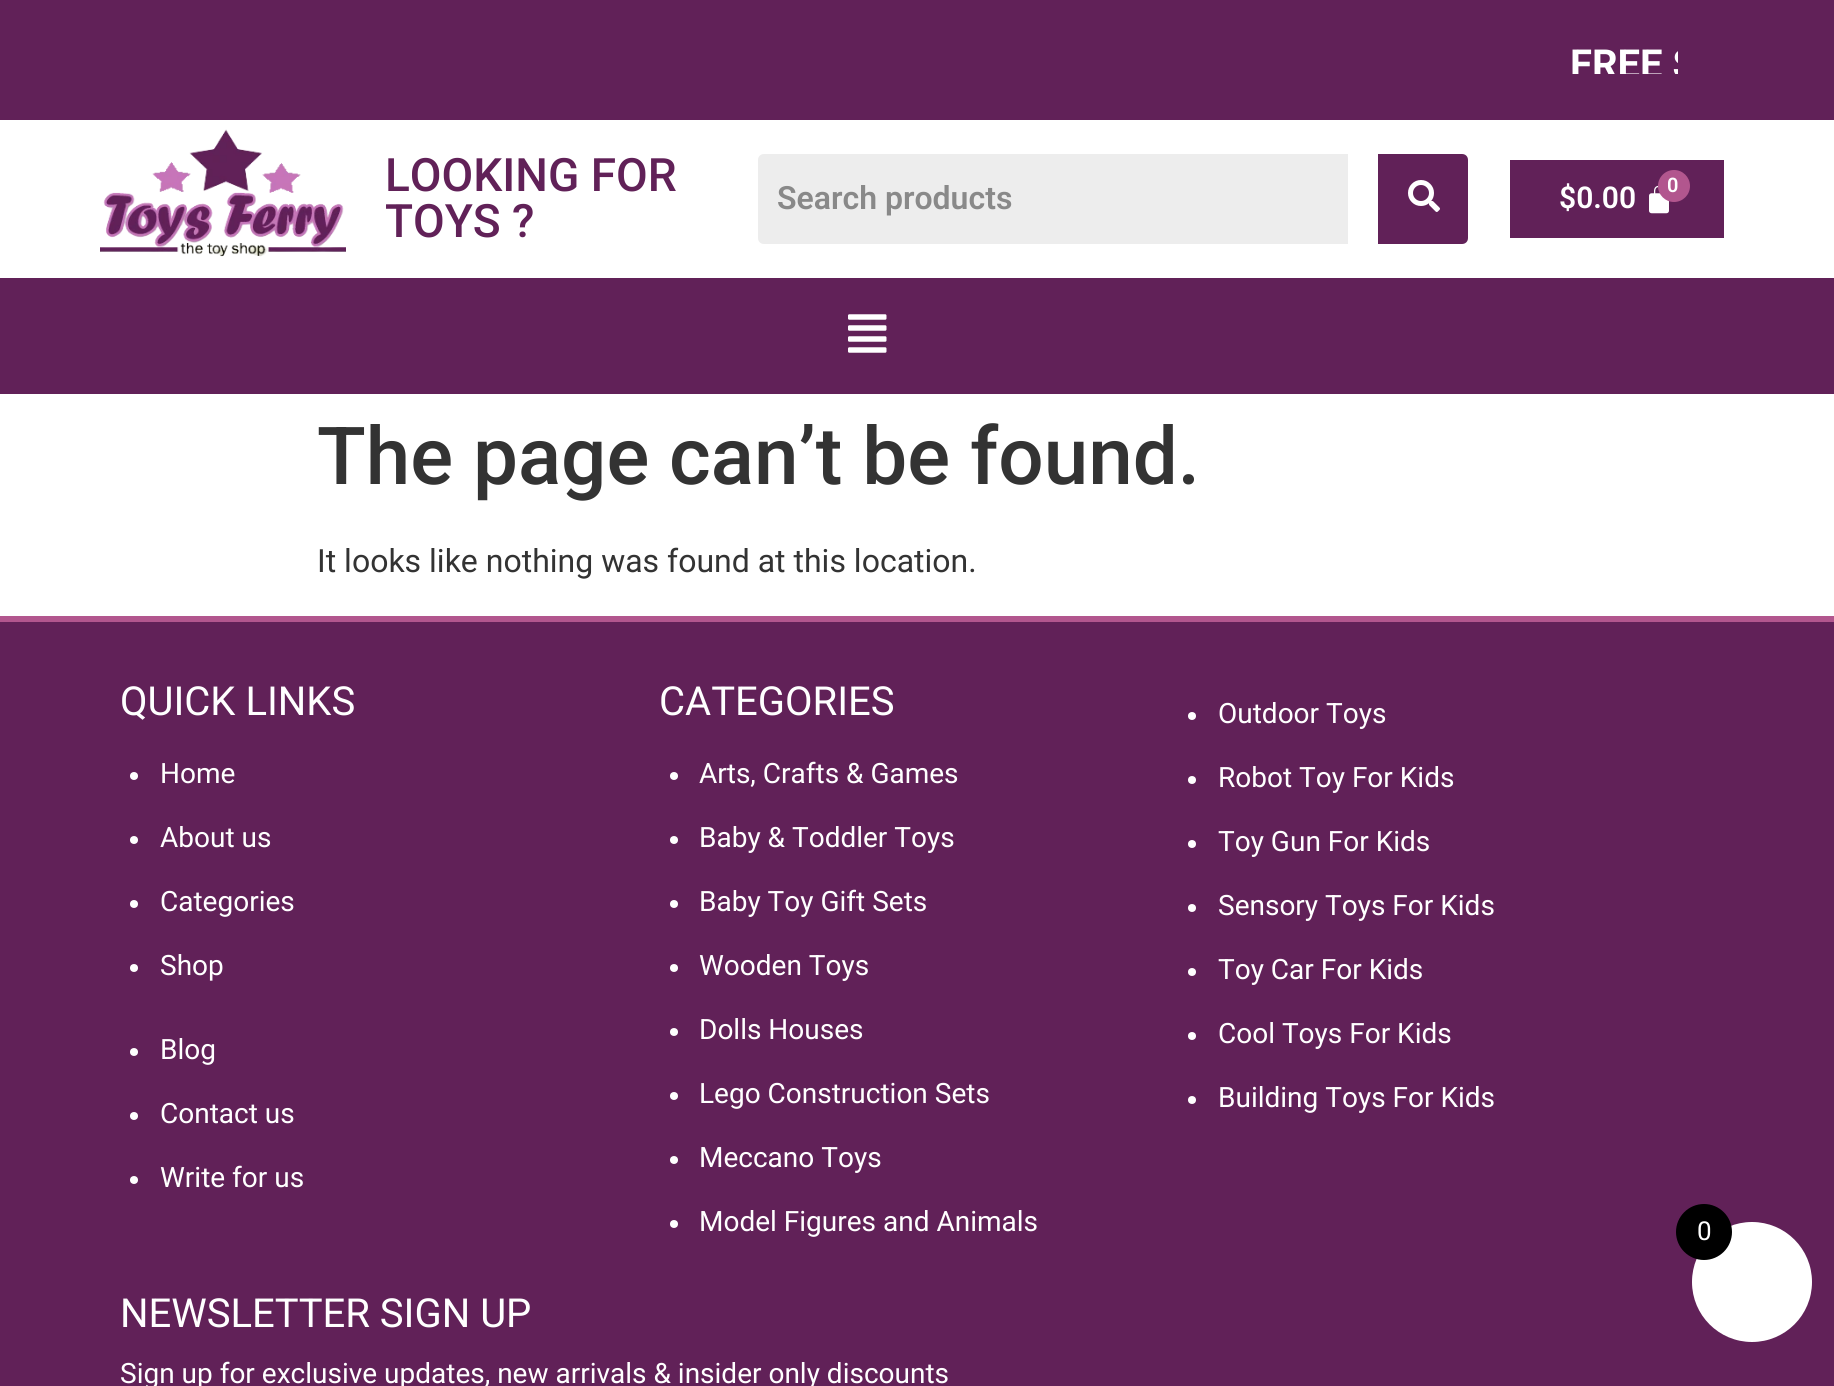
import math
import cairo

surface = cairo.ImageSurface(cairo.FORMAT_RGB24, 1834, 1386)
cr = cairo.Context(surface)
options = cairo.FontOptions()
options.set_hint_metrics(cairo.HINT_METRICS_OFF)
options.set_hint_style(cairo.HINT_STYLE_NONE)
cr.set_font_options(options)
cr.set_miter_limit(4)


def rgb(code):
    cr.set_source_rgb(*(v / 255 for v in bytes.fromhex(code[-6:])))


def image(path, x, y, w, h):
    cr.save()
    cr.set_source_surface(cairo.ImageSurface.create_from_png(path), x, y)
    cr.rectangle(x, y, w, h)
    cr.fill()
    cr.restore()


rgb("#ffffff")
cr.paint()
rgb("#612158")
cr.rectangle(0, 0, 1834, 120)
cr.fill()
image("img/1.png", 100, 129, 246, 128)
rgb("#ededed")
cr.new_path()
cr.move_to(764, 154)
cr.line_to(1348, 154)
cr.line_to(1348, 244)
cr.line_to(764, 244)
cr.curve_to(760.5, 244, 758, 241.5, 758, 238)
cr.line_to(758, 160)
cr.curve_to(758, 156.5, 760.5, 154, 764, 154)
cr.close_path()
cr.fill()
rgb("#612158")
cr.new_path()
cr.move_to(1378, 154)
cr.line_to(1462, 154)
cr.curve_to(1465.5, 154, 1468, 156.5, 1468, 160)
cr.line_to(1468, 238)
cr.curve_to(1468, 241.5, 1465.5, 244, 1462, 244)
cr.line_to(1378, 244)
cr.close_path()
cr.fill()
image("img/2.png", 1408, 180, 32, 32)
cr.rectangle(1510, 160, 214, 78)
cr.fill()
image("img/3.png", 1649, 185, 20, 29)
rgb("#b2568e")
cr.arc(1674, 186, 16, 0, 2 * math.pi)
cr.fill()
rgb("#612158")
cr.rectangle(0, 278, 1834, 116)
cr.fill()
image("img/4.png", 848, 314, 39, 39)
cr.rectangle(0, 622, 1834, 764)
cr.fill()
rgb("#b2568e")
cr.rectangle(0, 616, 1834, 6)
cr.fill()
rgb("#ffffff")
cr.arc(134, 776, 4, 0, 2 * math.pi)
cr.fill()
cr.arc(134, 840, 4, 0, 2 * math.pi)
cr.fill()
cr.arc(134, 904, 4, 0, 2 * math.pi)
cr.fill()
cr.arc(134, 968, 4, 0, 2 * math.pi)
cr.fill()
cr.arc(134, 1052, 4, 0, 2 * math.pi)
cr.fill()
cr.arc(134, 1116, 4, 0, 2 * math.pi)
cr.fill()
cr.arc(134, 1180, 4, 0, 2 * math.pi)
cr.fill()
cr.arc(674, 776, 4, 0, 2 * math.pi)
cr.fill()
cr.arc(674, 840, 4, 0, 2 * math.pi)
cr.fill()
cr.arc(674, 904, 4, 0, 2 * math.pi)
cr.fill()
cr.arc(674, 968, 4, 0, 2 * math.pi)
cr.fill()
cr.arc(674, 1032, 4, 0, 2 * math.pi)
cr.fill()
cr.arc(674, 1096, 4, 0, 2 * math.pi)
cr.fill()
cr.arc(674, 1160, 4, 0, 2 * math.pi)
cr.fill()
cr.arc(674, 1224, 4, 0, 2 * math.pi)
cr.fill()
cr.arc(1192, 716, 4, 0, 2 * math.pi)
cr.fill()
cr.arc(1192, 780, 4, 0, 2 * math.pi)
cr.fill()
cr.arc(1192, 844, 4, 0, 2 * math.pi)
cr.fill()
cr.arc(1192, 908, 4, 0, 2 * math.pi)
cr.fill()
cr.arc(1192, 972, 4, 0, 2 * math.pi)
cr.fill()
cr.arc(1192, 1036, 4, 0, 2 * math.pi)
cr.fill()
cr.arc(1192, 1100, 4, 0, 2 * math.pi)
cr.fill()
cr.arc(1752, 1282, 60, 0, 2 * math.pi)
cr.fill()
rgb("#000000")
cr.arc(1704, 1232, 28, 0, 2 * math.pi)
cr.fill()
cr.save()
cr.rectangle(478, 34, 1200, 40)
cr.clip()
cr.select_font_face("Roboto", cairo.FONT_SLANT_NORMAL, cairo.FONT_WEIGHT_BOLD)
cr.set_font_size(40)
rgb("#ffffff")
cr.move_to(1570, 78)
cr.show_text("FREE S")
cr.restore()
cr.select_font_face("Roboto Medium")
cr.set_font_size(46)
rgb("#612158")
cr.move_to(385, 191)
cr.show_text("LOOKING FOR")
cr.move_to(385, 237)
cr.show_text("TOYS ?")
cr.select_font_face("Roboto SemiBold")
cr.set_font_size(32)
rgb("#898989")
cr.move_to(777, 209)
cr.show_text("Search products")
cr.set_font_size(30)
rgb("#ffffff")
cr.move_to(1559, 208)
cr.show_text("$0.00")
cr.set_font_size(20)
cr.move_to(1667, 192)
cr.show_text("0")
cr.select_font_face("Roboto Medium")
cr.set_font_size(80)
rgb("#333333")
cr.move_to(317, 484)
cr.show_text("The page can’t be found.")
cr.select_font_face("Roboto")
cr.set_font_size(32)
cr.move_to(317, 572)
cr.show_text("It looks like nothing was found at this location.")
cr.set_font_size(40)
rgb("#ffffff")
cr.move_to(120, 715)
cr.show_text("QUICK LINKS")
cr.set_font_size(28)
for x, y, s in [
    (160, 783, "Home"),
    (160, 847, "About us"),
    (160, 911, "Categories"),
    (160, 975, "Shop"),
    (160, 1059, "Blog"),
    (160, 1123, "Contact us"),
    (160, 1187, "Write for us"),
]:
    cr.move_to(x, y)
    cr.show_text(s)
cr.set_font_size(40)
cr.move_to(659, 715)
cr.show_text("CATEGORIES")
cr.set_font_size(28)
for x, y, s in [
    (699, 783, "Arts, Crafts & Games"),
    (699, 847, "Baby & Toddler Toys"),
    (699, 911, "Baby Toy Gift Sets"),
    (699, 975, "Wooden Toys"),
    (699, 1039, "Dolls Houses"),
    (699, 1103, "Lego Construction Sets"),
    (699, 1167, "Meccano Toys"),
    (699, 1231, "Model Figures and Animals"),
    (1218, 723, "Outdoor Toys"),
    (1218, 787, "Robot Toy For Kids"),
    (1218, 851, "Toy Gun For Kids"),
    (1218, 915, "Sensory Toys For Kids"),
    (1218, 979, "Toy Car For Kids"),
    (1218, 1043, "Cool Toys For Kids"),
    (1218, 1107, "Building Toys For Kids"),
]:
    cr.move_to(x, y)
    cr.show_text(s)
cr.set_font_size(40)
cr.move_to(120, 1327)
cr.show_text("NEWSLETTER SIGN UP")
cr.set_font_size(28)
cr.move_to(120, 1383)
cr.show_text("Sign up for exclusive updates, new arrivals & insider only discounts")
cr.set_font_size(26)
cr.move_to(1697, 1240)
cr.show_text("0")
surface.write_to_png("page.png")
